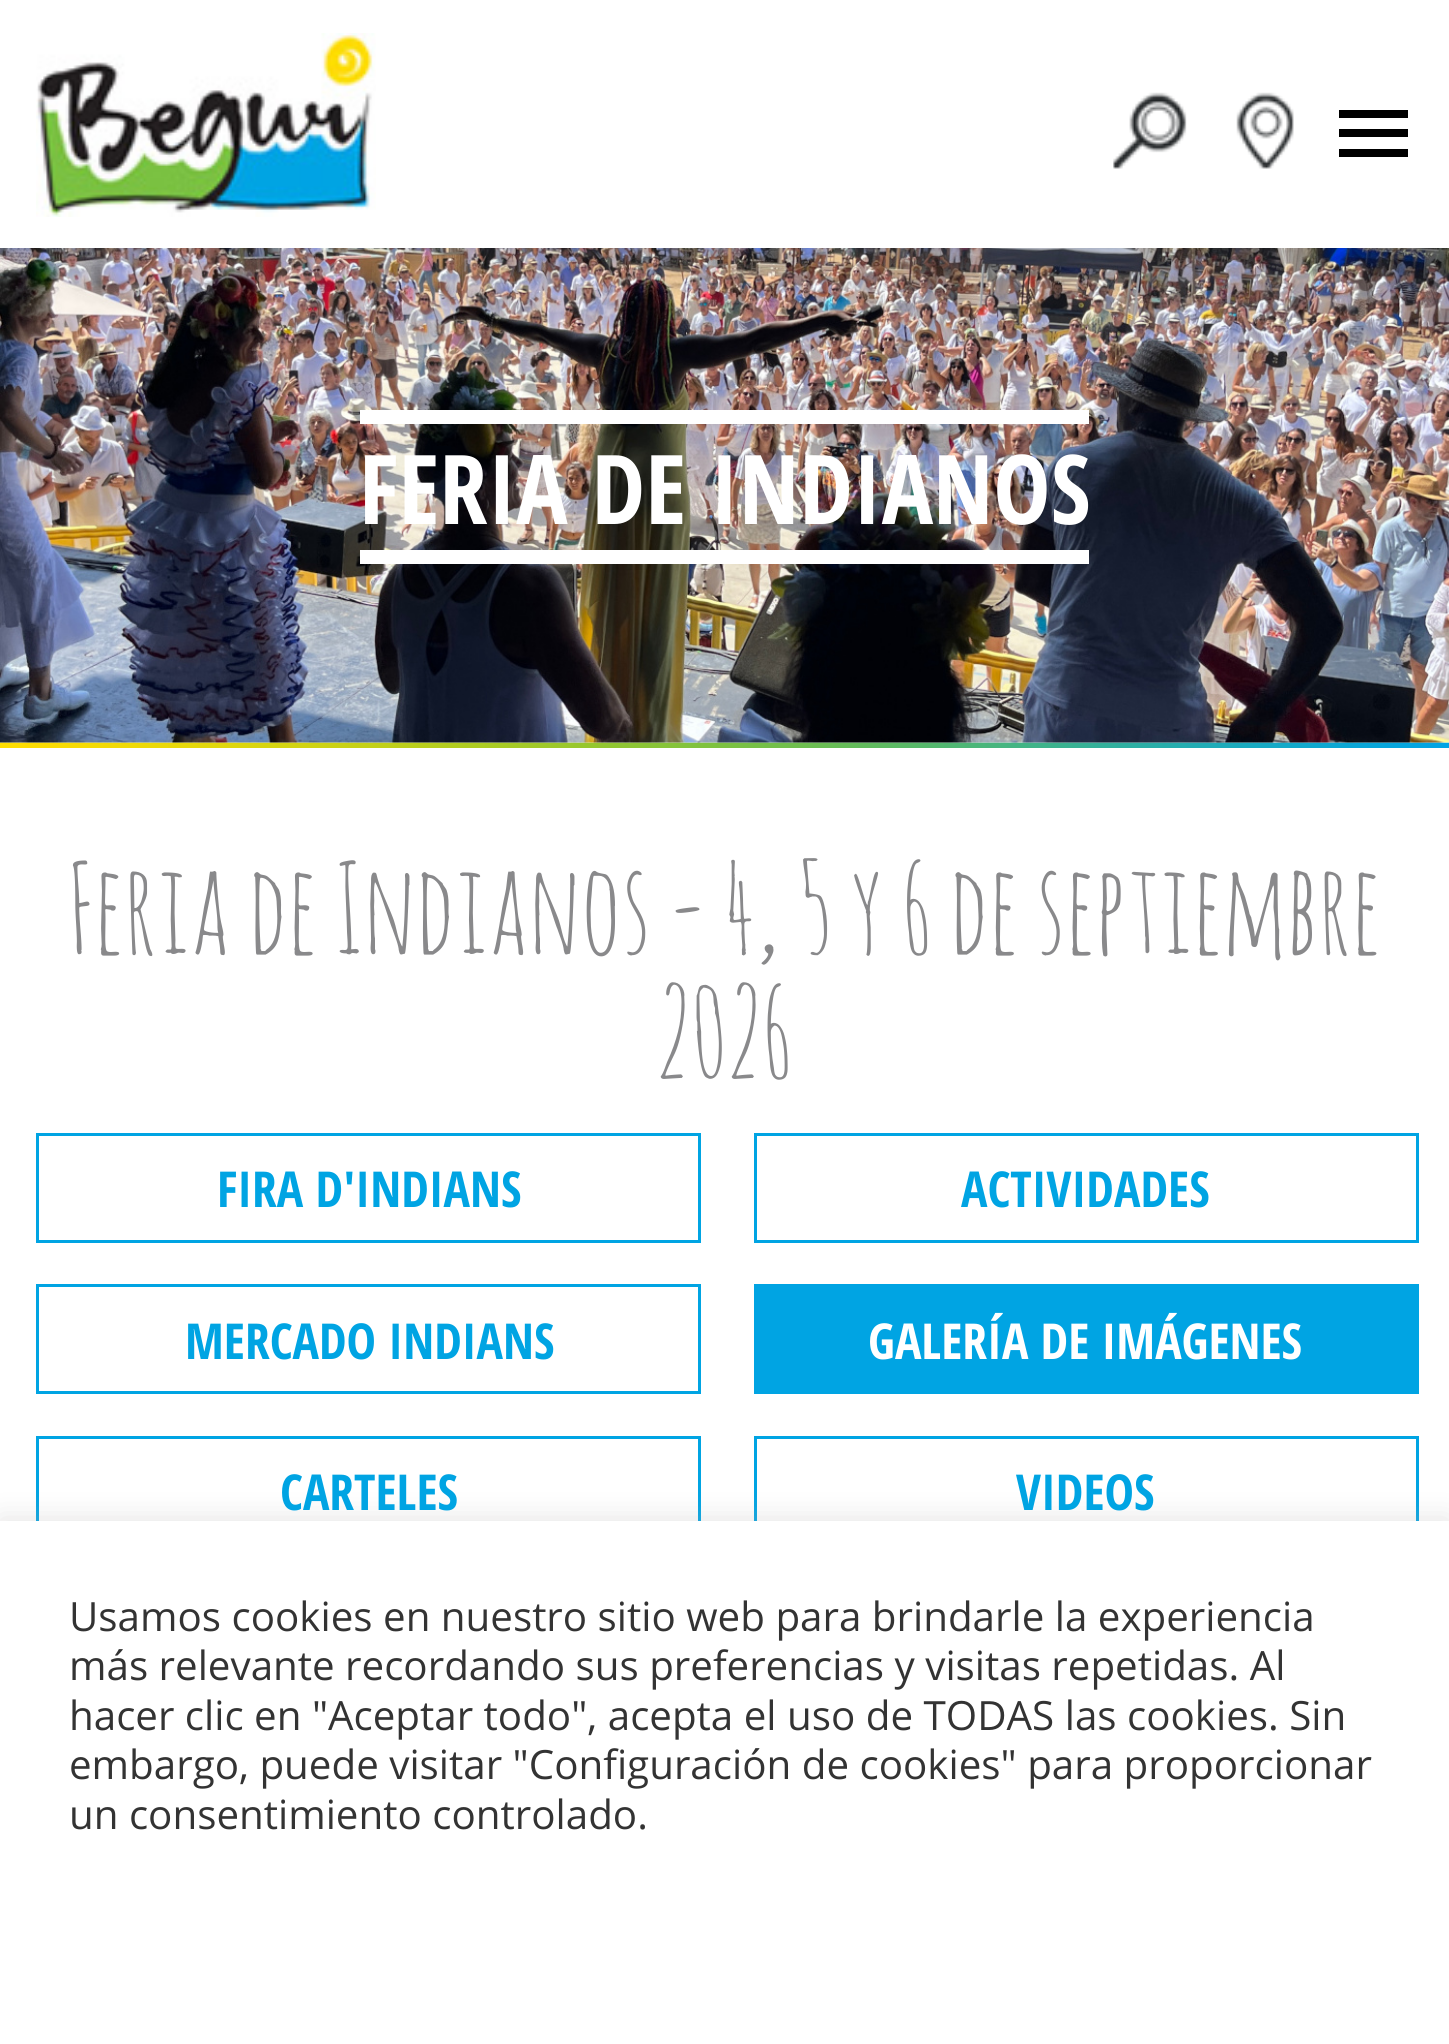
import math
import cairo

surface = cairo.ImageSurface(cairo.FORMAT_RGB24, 1449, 2044)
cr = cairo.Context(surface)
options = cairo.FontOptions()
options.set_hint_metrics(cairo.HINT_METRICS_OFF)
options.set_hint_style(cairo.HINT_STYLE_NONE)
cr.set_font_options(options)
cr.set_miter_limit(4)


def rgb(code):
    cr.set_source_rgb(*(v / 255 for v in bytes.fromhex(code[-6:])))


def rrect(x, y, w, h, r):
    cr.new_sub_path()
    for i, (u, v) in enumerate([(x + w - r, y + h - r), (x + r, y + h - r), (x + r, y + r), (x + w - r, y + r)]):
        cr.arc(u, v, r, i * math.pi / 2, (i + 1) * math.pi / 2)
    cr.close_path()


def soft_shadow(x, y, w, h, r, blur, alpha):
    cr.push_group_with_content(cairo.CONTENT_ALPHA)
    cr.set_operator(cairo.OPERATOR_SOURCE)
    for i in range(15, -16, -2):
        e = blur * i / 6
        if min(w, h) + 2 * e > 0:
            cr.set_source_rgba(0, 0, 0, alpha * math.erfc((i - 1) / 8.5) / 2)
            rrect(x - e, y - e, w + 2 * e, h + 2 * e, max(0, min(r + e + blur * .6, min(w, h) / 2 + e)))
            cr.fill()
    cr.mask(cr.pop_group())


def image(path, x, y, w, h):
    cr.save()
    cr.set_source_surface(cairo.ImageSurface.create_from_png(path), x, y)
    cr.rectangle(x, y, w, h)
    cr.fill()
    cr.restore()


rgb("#ffffff")
cr.paint()
image("img/1.png", 36, 33, 340, 184)
image("img/2.png", 1113, 92, 74, 77)
image("img/3.png", 1236, 92, 58, 77)
for x, y, w, h, color in [
    (1339, 110, 69, 8, "#000000"),
    (1339, 129, 69, 8, "#000000"),
    (1339, 149, 69, 8, "#000000"),
]:
    rgb(color)
    cr.rectangle(x, y, w, h)
    cr.fill()
image("img/5.png", 0, 742, 1449, 6)
image("img/4.png", 0, 248, 1449, 495)
rgb("#ffffff")
cr.rectangle(360, 410, 729, 14)
cr.fill()
cr.rectangle(360, 550, 729, 14)
cr.fill()
cr.rectangle(37.5, 1134.5, 662, 107)
rgb("#00a4e3")
cr.set_line_width(3)
cr.stroke()
cr.rectangle(755.5, 1134.5, 662, 107)
cr.stroke()
cr.rectangle(37.5, 1285.5, 662, 107)
cr.stroke()
cr.rectangle(754, 1284, 665, 110)
cr.fill()
cr.rectangle(37.5, 1437.5, 662, 107)
cr.stroke()
cr.rectangle(755.5, 1437.5, 662, 107)
cr.stroke()
rgb("#acabab")
soft_shadow(0, 1518, 1449, 525, 0, 14, 0.3)
rgb("#ffffff")
cr.rectangle(0, 1521, 1449, 523)
cr.fill()
cr.select_font_face("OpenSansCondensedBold", cairo.FONT_SLANT_NORMAL, cairo.FONT_WEIGHT_BOLD)
cr.set_font_size(96.25)
cr.move_to(359, 524)
cr.show_text("FERIA DE INDIANOS")
cr.select_font_face("Amatic SC")
cr.set_font_size(123.75)
rgb("#89898b")
cr.move_to(68, 954)
cr.show_text("Feria de Indianos - 4, 5 y 6 de septiembre")
cr.move_to(656, 1078)
cr.show_text("2026")
cr.select_font_face("OpenSansCondensedBold", cairo.FONT_SLANT_NORMAL, cairo.FONT_WEIGHT_BOLD)
cr.set_font_size(49.5)
rgb("#00a4e3")
for x, y, s in [
    (217, 1207, "FIRA D'INDIANS"),
    (961, 1207, "ACTIVIDADES"),
    (185, 1359, "MERCADO INDIANS"),
]:
    cr.move_to(x, y)
    cr.show_text(s)
rgb("#ffffff")
cr.move_to(868, 1359)
cr.show_text("GALERÍA DE IMÁGENES")
rgb("#00a4e3")
cr.move_to(280, 1510)
cr.show_text("CARTELES")
cr.move_to(1016, 1510)
cr.show_text("VIDEOS")
cr.select_font_face("Open Sans")
cr.set_font_size(40.3)
rgb("#333333")
for x, y, s in [
    (69, 1631, "Usamos cookies en nuestro sitio web para brindarle la experiencia"),
    (69, 1680, "más relevante recordando sus preferencias y visitas repetidas. Al"),
    (69, 1730, "hacer clic en \"Aceptar todo\", acepta el uso de TODAS las cookies. Sin"),
    (69, 1779, "embargo, puede visitar \"Configuración de cookies\" para proporcionar"),
    (69, 1829, "un consentimiento controlado."),
]:
    cr.move_to(x, y)
    cr.show_text(s)
surface.write_to_png("page.png")
